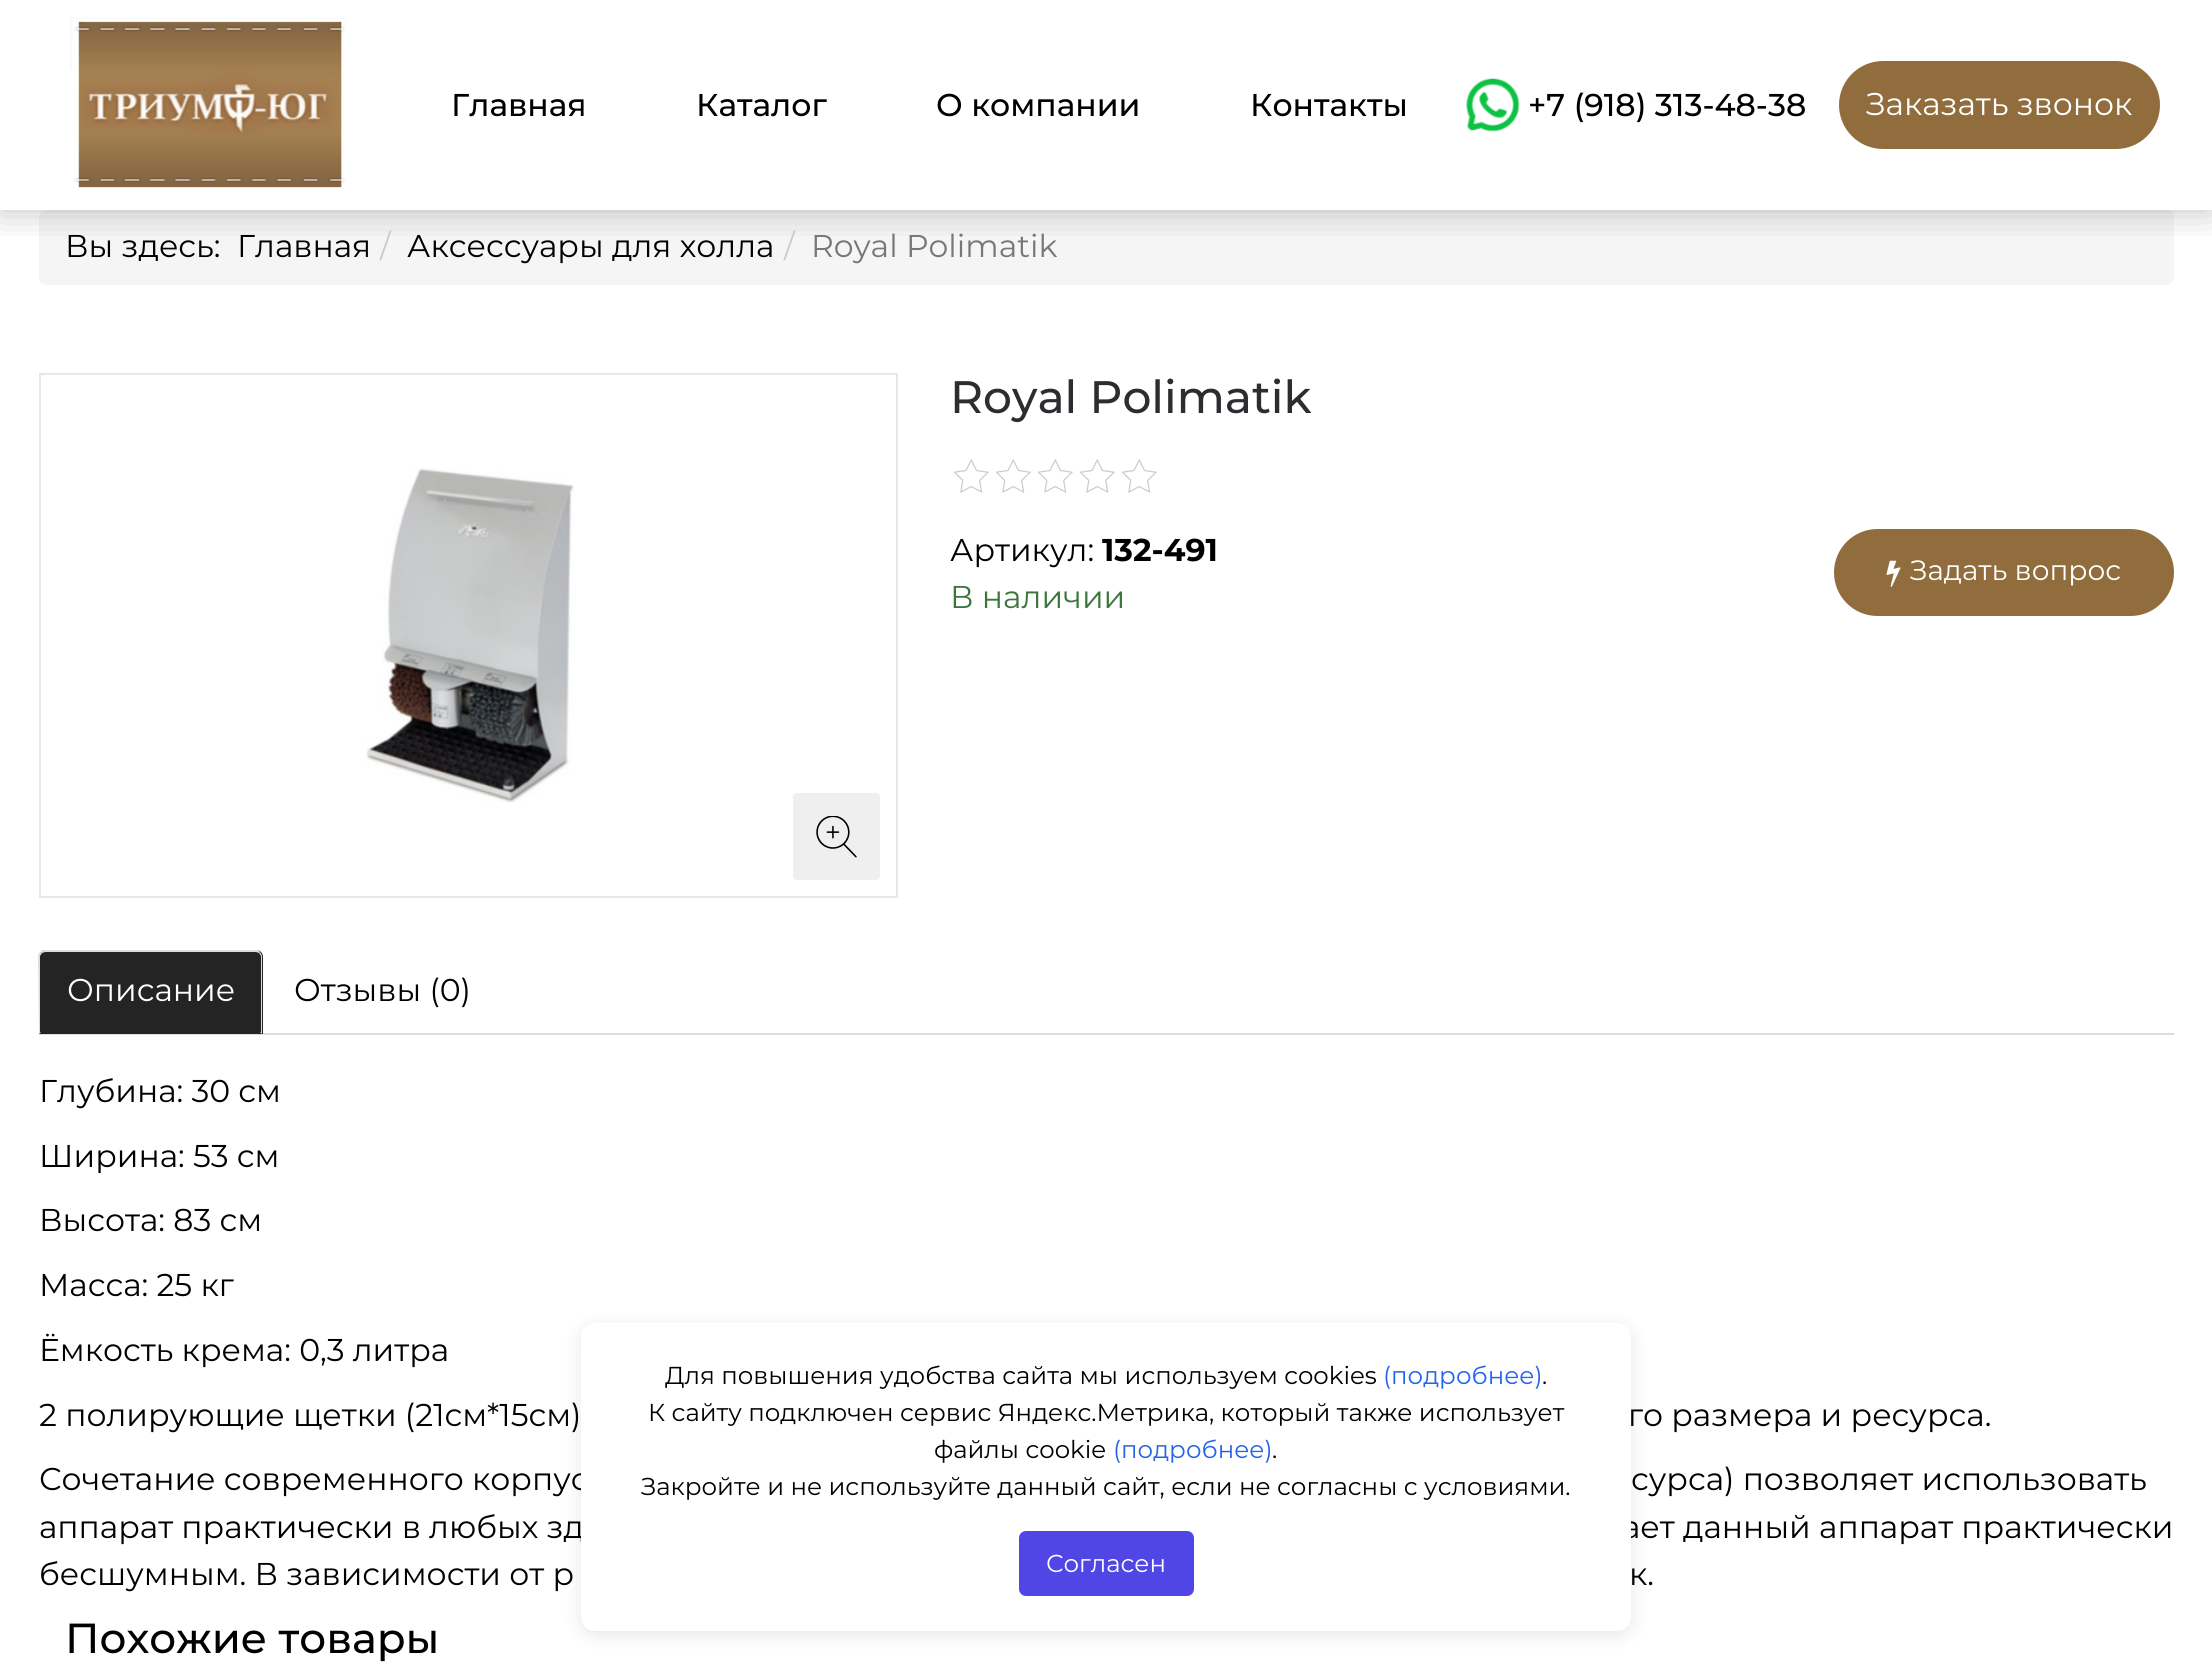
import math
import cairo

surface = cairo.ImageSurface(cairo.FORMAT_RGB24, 2212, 1665)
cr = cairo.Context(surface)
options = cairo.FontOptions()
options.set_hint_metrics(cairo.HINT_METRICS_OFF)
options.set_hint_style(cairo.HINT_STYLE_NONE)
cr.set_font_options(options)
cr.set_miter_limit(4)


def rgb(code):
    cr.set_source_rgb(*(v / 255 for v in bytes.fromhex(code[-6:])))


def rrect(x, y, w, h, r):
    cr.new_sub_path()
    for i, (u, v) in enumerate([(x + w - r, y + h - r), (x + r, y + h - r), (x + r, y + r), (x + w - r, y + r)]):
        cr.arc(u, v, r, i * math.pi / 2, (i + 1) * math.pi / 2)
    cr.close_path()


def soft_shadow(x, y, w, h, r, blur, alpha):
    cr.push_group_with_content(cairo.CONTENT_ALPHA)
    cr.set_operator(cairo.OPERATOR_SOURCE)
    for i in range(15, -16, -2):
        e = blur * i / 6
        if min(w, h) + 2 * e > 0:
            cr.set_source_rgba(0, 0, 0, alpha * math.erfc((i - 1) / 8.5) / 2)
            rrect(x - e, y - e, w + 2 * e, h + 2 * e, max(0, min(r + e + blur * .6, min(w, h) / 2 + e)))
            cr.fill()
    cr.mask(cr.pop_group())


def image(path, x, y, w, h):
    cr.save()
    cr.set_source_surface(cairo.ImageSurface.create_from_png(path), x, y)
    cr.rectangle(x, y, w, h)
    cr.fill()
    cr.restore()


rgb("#ffffff")
cr.paint()
rgb("#f5f5f5")
rrect(39, 210, 2135, 75, 7)
cr.fill()
cr.save()
cr.rectangle(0, 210, 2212, 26)
cr.clip()
rgb("#000000")
soft_shadow(0, 0, 2212, 210, 0, 18.5, 0.25)
cr.restore()
image("img/1.png", 70, 17, 278, 171)
image("img/2.png", 1466, 78, 54, 54)
rgb("#916d3d")
rrect(1839, 61, 321, 88, 44)
cr.fill()
cr.rectangle(40, 374, 857, 523)
rgb("#e7e7e7")
cr.stroke()
image("img/3.png", 366, 468, 208, 335)
rgb("#efefef")
rrect(793, 793, 87, 87, 4)
cr.fill()
image("img/4.png", 816, 816, 41, 42)
image("img/5.png", 954, 459, 35, 34)
image("img/5.png", 996, 459, 35, 34)
image("img/5.png", 1038, 459, 35, 34)
image("img/5.png", 1080, 459, 35, 34)
image("img/5.png", 1122, 459, 35, 34)
rgb("#916d3d")
rrect(1834, 529, 340, 87, 43.5)
cr.fill()
image("img/6.png", 1886, 560, 15, 27)
rgb("#dddddd")
cr.rectangle(39, 1033, 2135, 2)
cr.fill()
rgb("#242424")
cr.new_path()
cr.move_to(46, 950)
cr.line_to(256, 950)
cr.curve_to(260, 950, 263, 953, 263, 957)
cr.line_to(263, 1034)
cr.line_to(39, 1034)
cr.line_to(39, 957)
cr.curve_to(39, 953, 42, 950, 46, 950)
cr.close_path()
cr.fill()
rgb("#dddddd")
cr.new_path()
cr.move_to(46, 952)
cr.curve_to(44, 952, 43, 953, 42, 953)
cr.line_to(40, 952)
cr.line_to(44, 950)
cr.line_to(258, 950)
cr.line_to(260, 952)
cr.line_to(259, 953)
cr.line_to(256, 952)
cr.close_path()
cr.fill()
cr.new_path()
cr.move_to(260, 952)
cr.curve_to(261, 954, 262, 955, 262, 957)
cr.line_to(262, 1034)
cr.line_to(260, 1032)
cr.line_to(261, 1032)
cr.line_to(261, 956)
cr.line_to(259, 953)
cr.close_path()
cr.fill()
cr.new_path()
cr.move_to(38, 955)
cr.line_to(40, 952)
cr.line_to(42, 953)
cr.line_to(40, 956)
cr.line_to(40, 1032)
cr.line_to(41, 1032)
cr.line_to(39, 1034)
cr.close_path()
cr.fill()
rgb("#000000")
soft_shadow(581, 1327, 1050, 308, 14, 9, 0.1)
cr.select_font_face("Montserrat Medium")
cr.set_font_size(31.5)
rgb("#000000")
for x, y, s in [
    (451, 116, "Главная"),
    (696, 116, "Каталог"),
    (936, 116, "О компании"),
    (1250, 116, "Контакты"),
    (1528, 116, "+7 (918) 313-48-38"),
]:
    cr.move_to(x, y)
    cr.show_text(s)
cr.select_font_face("Montserrat")
rgb("#ffffff")
cr.move_to(1866, 115)
cr.show_text("Заказать звонок")
rgb("#000000")
cr.move_to(65, 257)
cr.show_text("Вы здесь:")
cr.move_to(237, 257)
cr.show_text("Главная")
rgb("#cccccc")
cr.move_to(380, 257)
cr.show_text("/")
rgb("#000000")
cr.move_to(407, 257)
cr.show_text("Аксессуары для холла")
rgb("#cccccc")
cr.move_to(784, 257)
cr.show_text("/")
rgb("#777777")
cr.move_to(811, 257)
cr.show_text("Royal Polimatik")
cr.select_font_face("Montserrat Medium")
cr.set_font_size(45.5)
rgb("#2d2c31")
cr.move_to(950, 413)
cr.show_text("Royal Polimatik")
cr.select_font_face("Montserrat")
cr.set_font_size(31.5)
rgb("#000000")
cr.move_to(950, 561)
cr.show_text("Артикул:")
cr.select_font_face("Montserrat", cairo.FONT_SLANT_NORMAL, cairo.FONT_WEIGHT_BOLD)
cr.move_to(1102, 561)
cr.show_text("132-491")
cr.select_font_face("Montserrat")
rgb("#3c763d")
cr.move_to(950, 608)
cr.show_text("В наличии")
cr.set_font_size(28)
rgb("#ffffff")
cr.move_to(1910, 580)
cr.show_text("Задать вопрос")
cr.set_font_size(31.5)
cr.move_to(67, 1001)
cr.show_text("Описание")
rgb("#000000")
for x, y, s in [
    (294, 1001, "Отзывы (0)"),
    (39, 1102, "Глубина: 30 см"),
    (39, 1167, "Ширина: 53 см"),
    (39, 1231, "Высота: 83 см"),
    (39, 1296, "Масса: 25 кг"),
    (39, 1361, "Ёмкость крема: 0,3 литра"),
    (39, 1426, "2 полирующие щетки (21см*15см)"),
    (1628, 1426, "го размера и ресурса."),
    (39, 1490, "Сочетание современного корпус"),
    (1631, 1490, "сурса) позволяет использовать"),
    (39, 1538, "аппарат практически в любых зд"),
    (1622, 1538, "ает данный аппарат практически"),
    (39, 1585, "бесшумным. В зависимости от р"),
    (1629, 1585, "к."),
]:
    cr.move_to(x, y)
    cr.show_text(s)
cr.select_font_face("Montserrat Medium")
cr.set_font_size(42)
cr.move_to(65, 1653)
cr.show_text("Похожие товары")
rgb("#ffffff")
rrect(581, 1323, 1050, 308, 14)
cr.fill()
cr.select_font_face("Montserrat")
cr.set_font_size(24.5)
rgb("#000000")
cr.move_to(665, 1384)
cr.show_text("Для повышения удобства сайта мы используем cookies")
rgb("#2563eb")
cr.move_to(1383, 1384)
cr.show_text("(подробнее)")
rgb("#000000")
for x, y, s in [
    (1542, 1384, "."),
    (648, 1421, "К сайту подключен сервис Яндекс.Метрика, который также использует"),
    (934, 1458, "файлы cookie"),
]:
    cr.move_to(x, y)
    cr.show_text(s)
rgb("#2563eb")
cr.move_to(1113, 1458)
cr.show_text("(подробнее)")
rgb("#000000")
cr.move_to(1272, 1458)
cr.show_text(".")
cr.move_to(641, 1495)
cr.show_text("Закройте и не используйте данный сайт, если не согласны с условиями.")
rgb("#4f46e5")
rrect(1019, 1531, 175, 65, 7)
cr.fill()
rgb("#ffffff")
cr.move_to(1046, 1572)
cr.show_text("Согласен")
surface.write_to_png("page.png")
